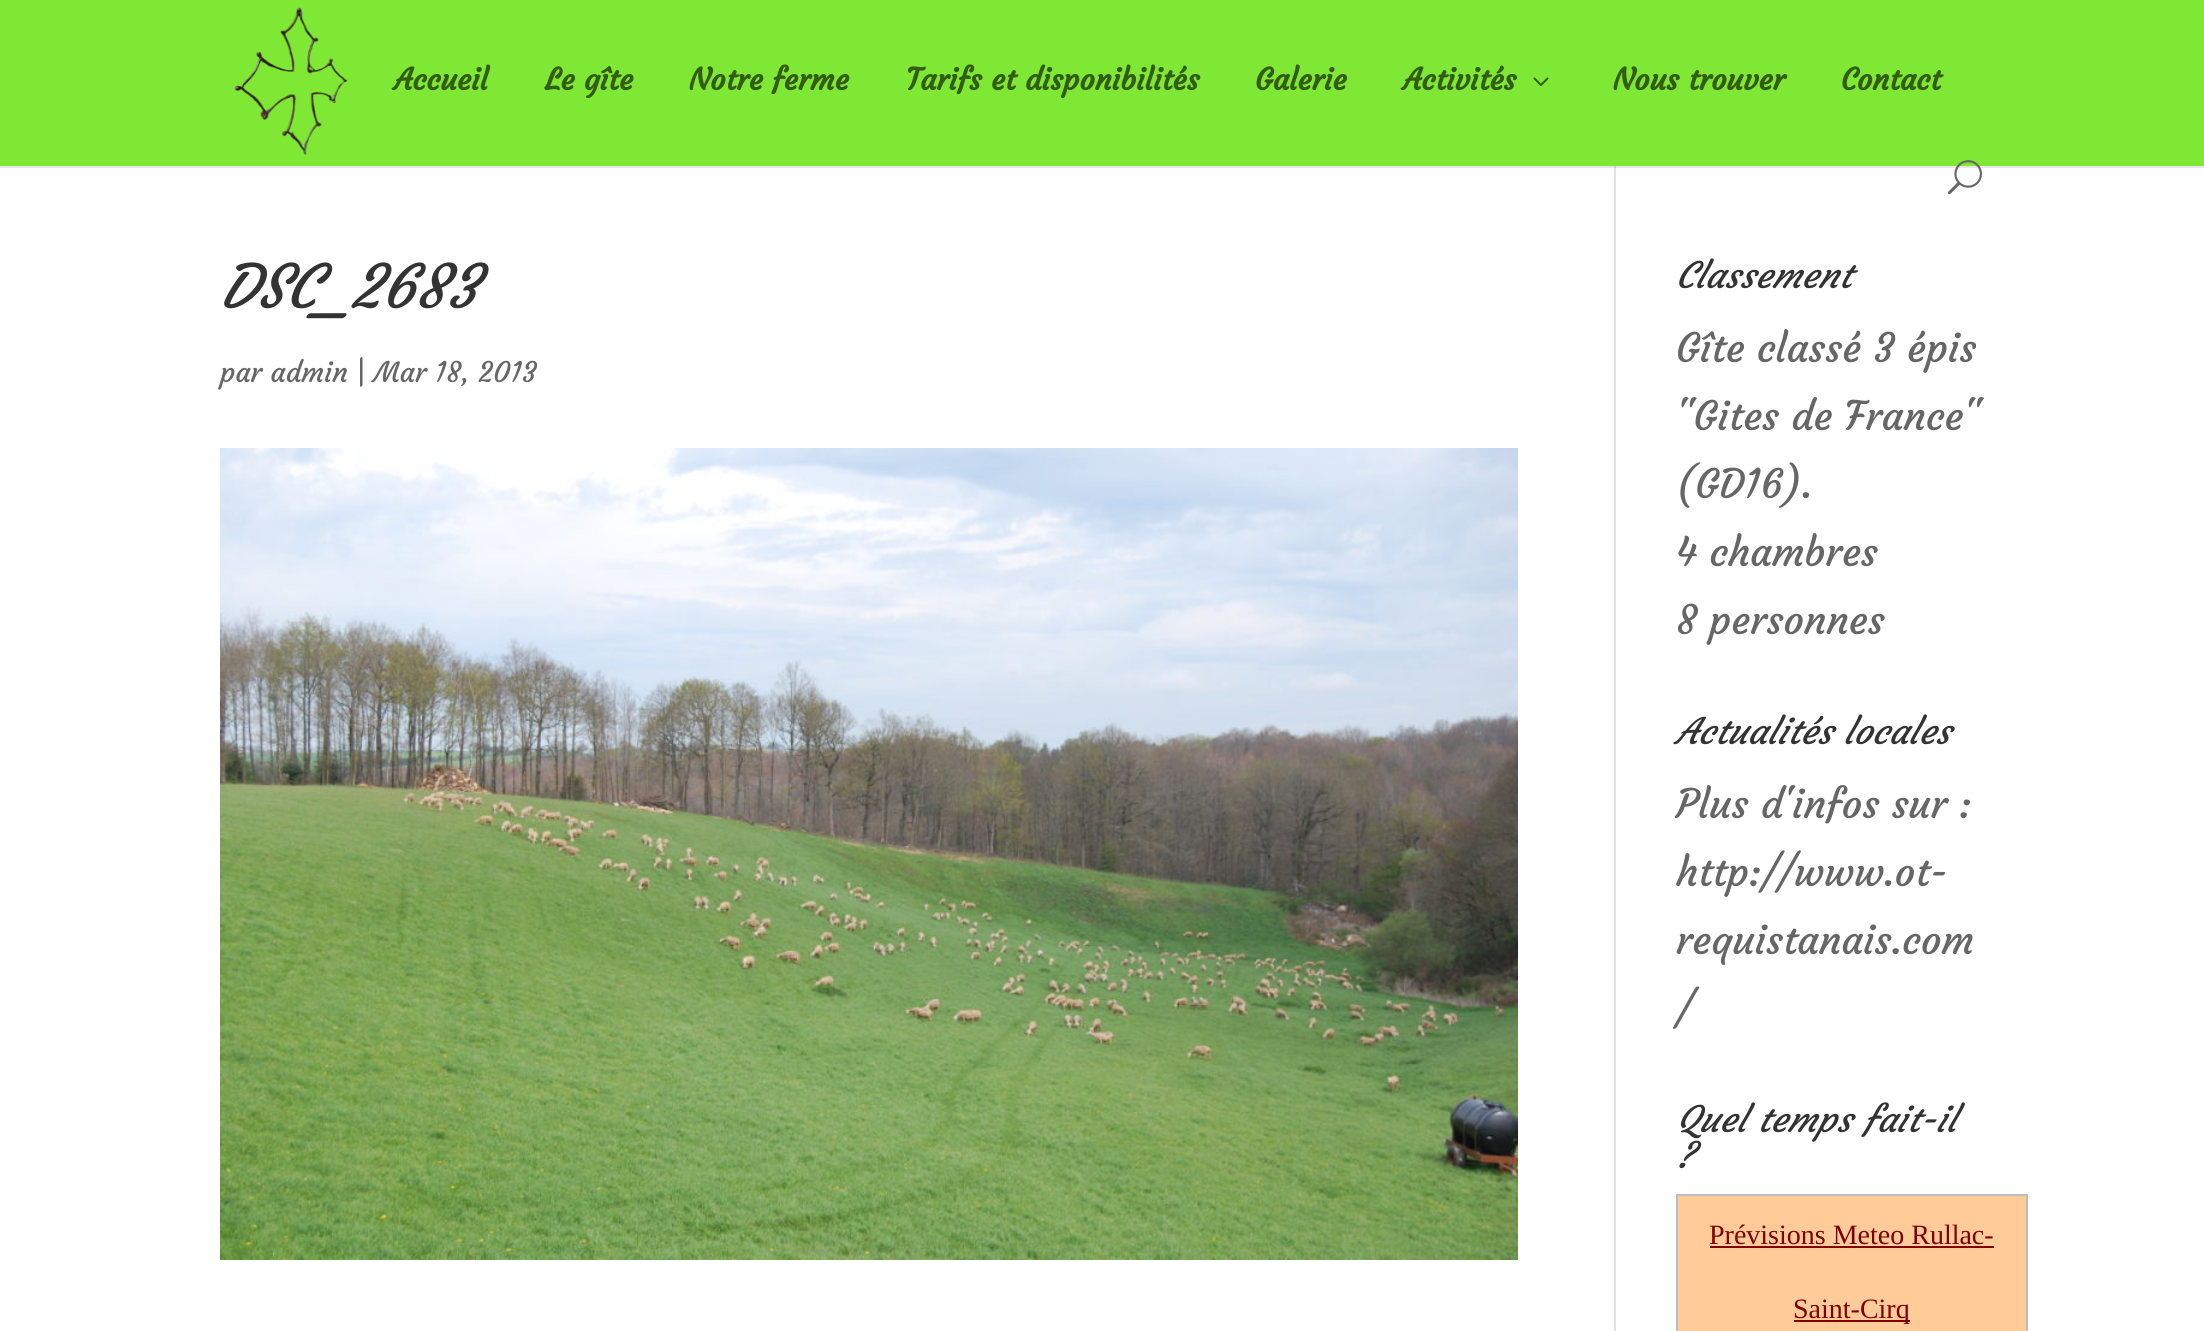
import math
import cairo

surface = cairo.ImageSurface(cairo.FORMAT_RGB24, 2204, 1331)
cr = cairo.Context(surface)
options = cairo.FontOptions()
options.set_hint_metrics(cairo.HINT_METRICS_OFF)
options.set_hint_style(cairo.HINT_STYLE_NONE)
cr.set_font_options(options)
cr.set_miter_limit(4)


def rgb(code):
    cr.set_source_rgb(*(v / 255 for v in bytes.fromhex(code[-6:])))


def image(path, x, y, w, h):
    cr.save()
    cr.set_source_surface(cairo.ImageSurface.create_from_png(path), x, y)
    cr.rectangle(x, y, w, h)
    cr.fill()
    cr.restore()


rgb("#ffffff")
cr.paint()
rgb("#e6e6e6")
cr.rectangle(0, 166, 2204, 2)
cr.fill()
rgb("#7fe835")
cr.rectangle(0, 0, 2204, 166)
cr.fill()
image("img/1.png", 234, 7, 114, 148)
image("img/2.png", 1533, 77, 16, 9)
image("img/3.png", 1947, 160, 35, 35)
rgb("#e2e2e2")
cr.rectangle(1614, 168, 2, 1163)
cr.fill()
rgb("#cbcbcb")
cr.rectangle(1614, 166, 2, 2)
cr.fill()
image("img/4.png", 220, 448, 1298, 812)
rgb("#ffcc99")
cr.rectangle(1677, 1195, 350, 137)
cr.fill_preserve()
rgb("#bdbdbd")
cr.stroke()
rgb("#800000")
cr.rectangle(1710, 1246, 284, 2)
cr.fill()
cr.rectangle(1794, 1320, 116, 2)
cr.fill()
cr.select_font_face("Courgette", cairo.FONT_SLANT_NORMAL, cairo.FONT_WEIGHT_BOLD)
cr.set_font_size(30)
rgb("#335d15")
for x, y, s in [
    (394, 90, "Accueil"),
    (545, 90, "Le gîte"),
    (689, 90, "Notre ferme"),
    (906, 90, "Tarifs et disponibilités"),
    (1255, 90, "Galerie"),
    (1403, 90, "Activités"),
    (1613, 90, "Nous trouver"),
    (1841, 90, "Contact"),
]:
    cr.move_to(x, y)
    cr.show_text(s)
cr.select_font_face("Courgette", cairo.FONT_SLANT_ITALIC)
cr.set_font_size(60)
rgb("#333333")
cr.move_to(220, 308)
cr.show_text("DSC_2683")
cr.select_font_face("Courgette")
cr.set_font_size(28)
rgb("#666666")
cr.move_to(220, 382)
cr.show_text("par admin | Mar 18, 2013")
cr.select_font_face("Courgette", cairo.FONT_SLANT_ITALIC)
cr.set_font_size(36)
rgb("#333333")
cr.move_to(1676, 288)
cr.show_text("Classement")
cr.select_font_face("Courgette")
cr.set_font_size(40)
rgb("#666666")
for x, y, s in [
    (1676, 362, "Gîte classé 3 épis"),
    (1676, 430, "\"Gites de France\""),
    (1676, 498, "(GD16)."),
    (1676, 566, "4 chambres"),
    (1676, 634, "8 personnes"),
]:
    cr.move_to(x, y)
    cr.show_text(s)
cr.select_font_face("Courgette", cairo.FONT_SLANT_ITALIC)
cr.set_font_size(36)
rgb("#333333")
cr.move_to(1676, 744)
cr.show_text("Actualités locales")
cr.select_font_face("Courgette")
cr.set_font_size(40)
rgb("#666666")
for x, y, s in [
    (1676, 818, "Plus d'infos sur :"),
    (1676, 886, "http://www.ot-"),
    (1676, 954, "requistanais.com"),
    (1676, 1022, "/"),
]:
    cr.move_to(x, y)
    cr.show_text(s)
cr.select_font_face("Courgette", cairo.FONT_SLANT_ITALIC)
cr.set_font_size(36)
rgb("#333333")
cr.move_to(1676, 1132)
cr.show_text("Quel temps fait-il")
cr.move_to(1676, 1168)
cr.show_text("?")
cr.select_font_face("Liberation Serif")
cr.set_font_size(28)
rgb("#800000")
cr.move_to(1709, 1244)
cr.show_text("Prévisions Meteo Rullac-")
cr.move_to(1793, 1318)
cr.show_text("Saint-Cirq")
surface.write_to_png("page.png")
